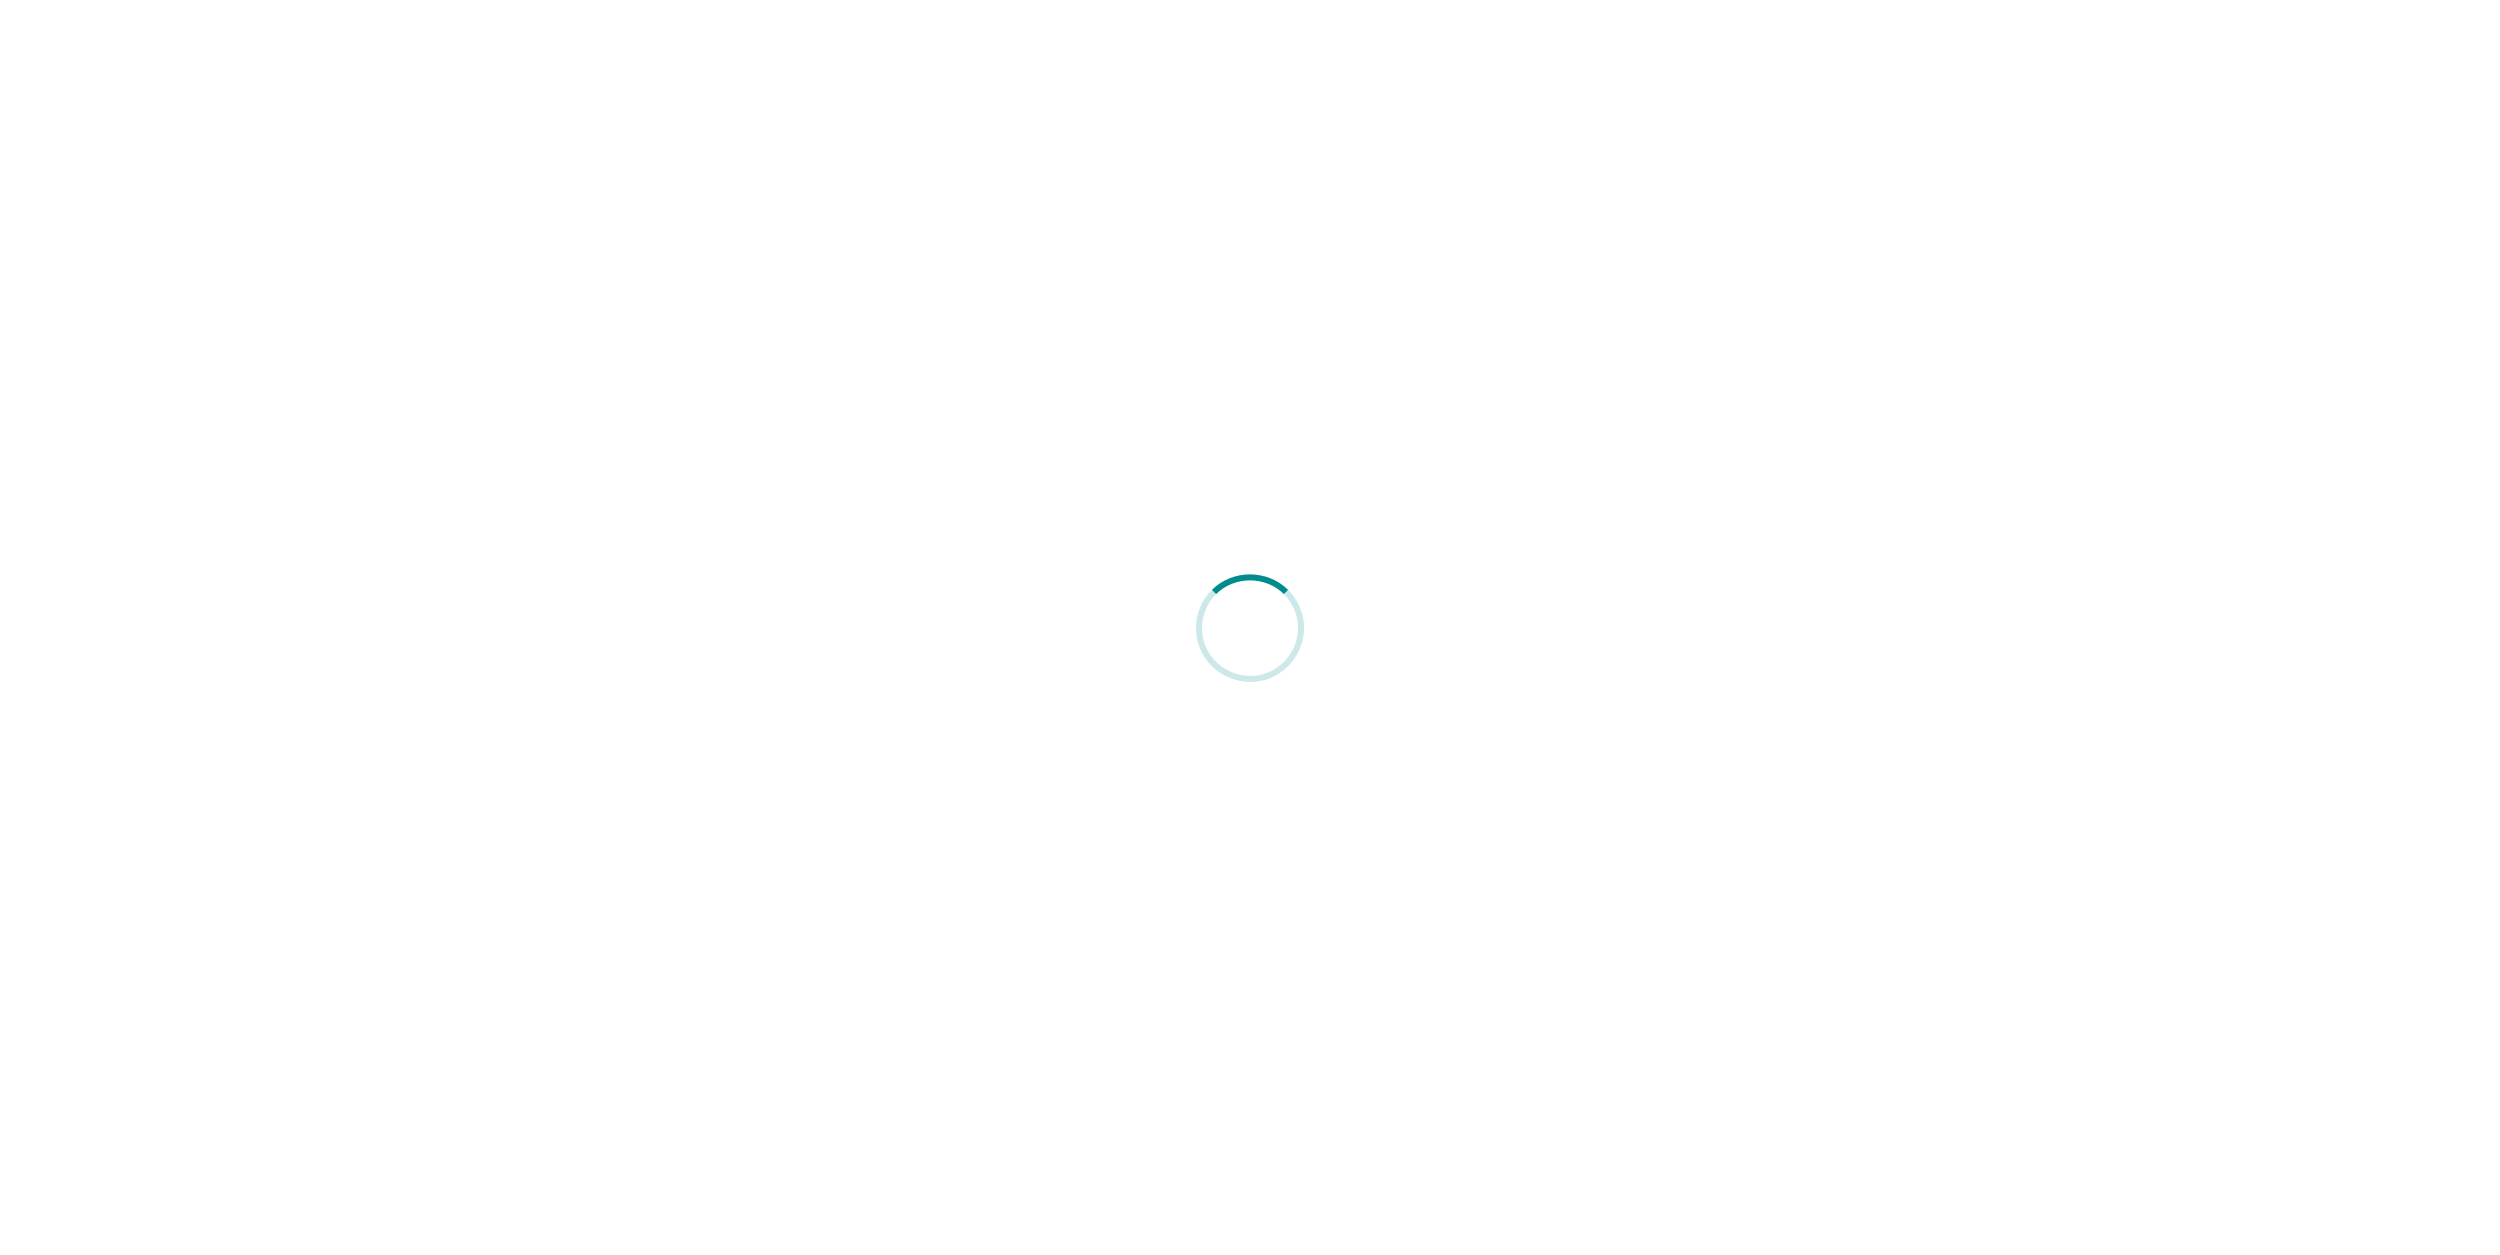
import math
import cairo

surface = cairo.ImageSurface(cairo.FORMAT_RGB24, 2500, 1255)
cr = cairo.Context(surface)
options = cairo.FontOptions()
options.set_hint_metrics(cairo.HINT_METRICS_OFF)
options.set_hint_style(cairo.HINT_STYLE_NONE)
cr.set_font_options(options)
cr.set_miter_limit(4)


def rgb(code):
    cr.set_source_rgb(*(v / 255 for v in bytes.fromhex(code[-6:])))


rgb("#ffffff")
cr.paint()
cr.new_path()
cr.move_to(1214, 592)
cr.curve_to(1233.5, 572.5, 1266.5, 572.5, 1286, 592)
rgb("#008c8d")
cr.set_line_width(6)
cr.stroke()
cr.new_path()
cr.move_to(1286, 592)
cr.curve_to(1298, 604, 1303.5, 621.5, 1300, 638)
cr.curve_to(1298, 648, 1293, 657, 1286, 664)
cr.curve_to(1254, 696, 1199, 673, 1199, 628)
cr.curve_to(1199, 614.5, 1204.5, 601.5, 1214, 592)
cr.set_source_rgba(0, 0.549, 0.553, 0.2)
cr.stroke()
surface.write_to_png("page.png")
